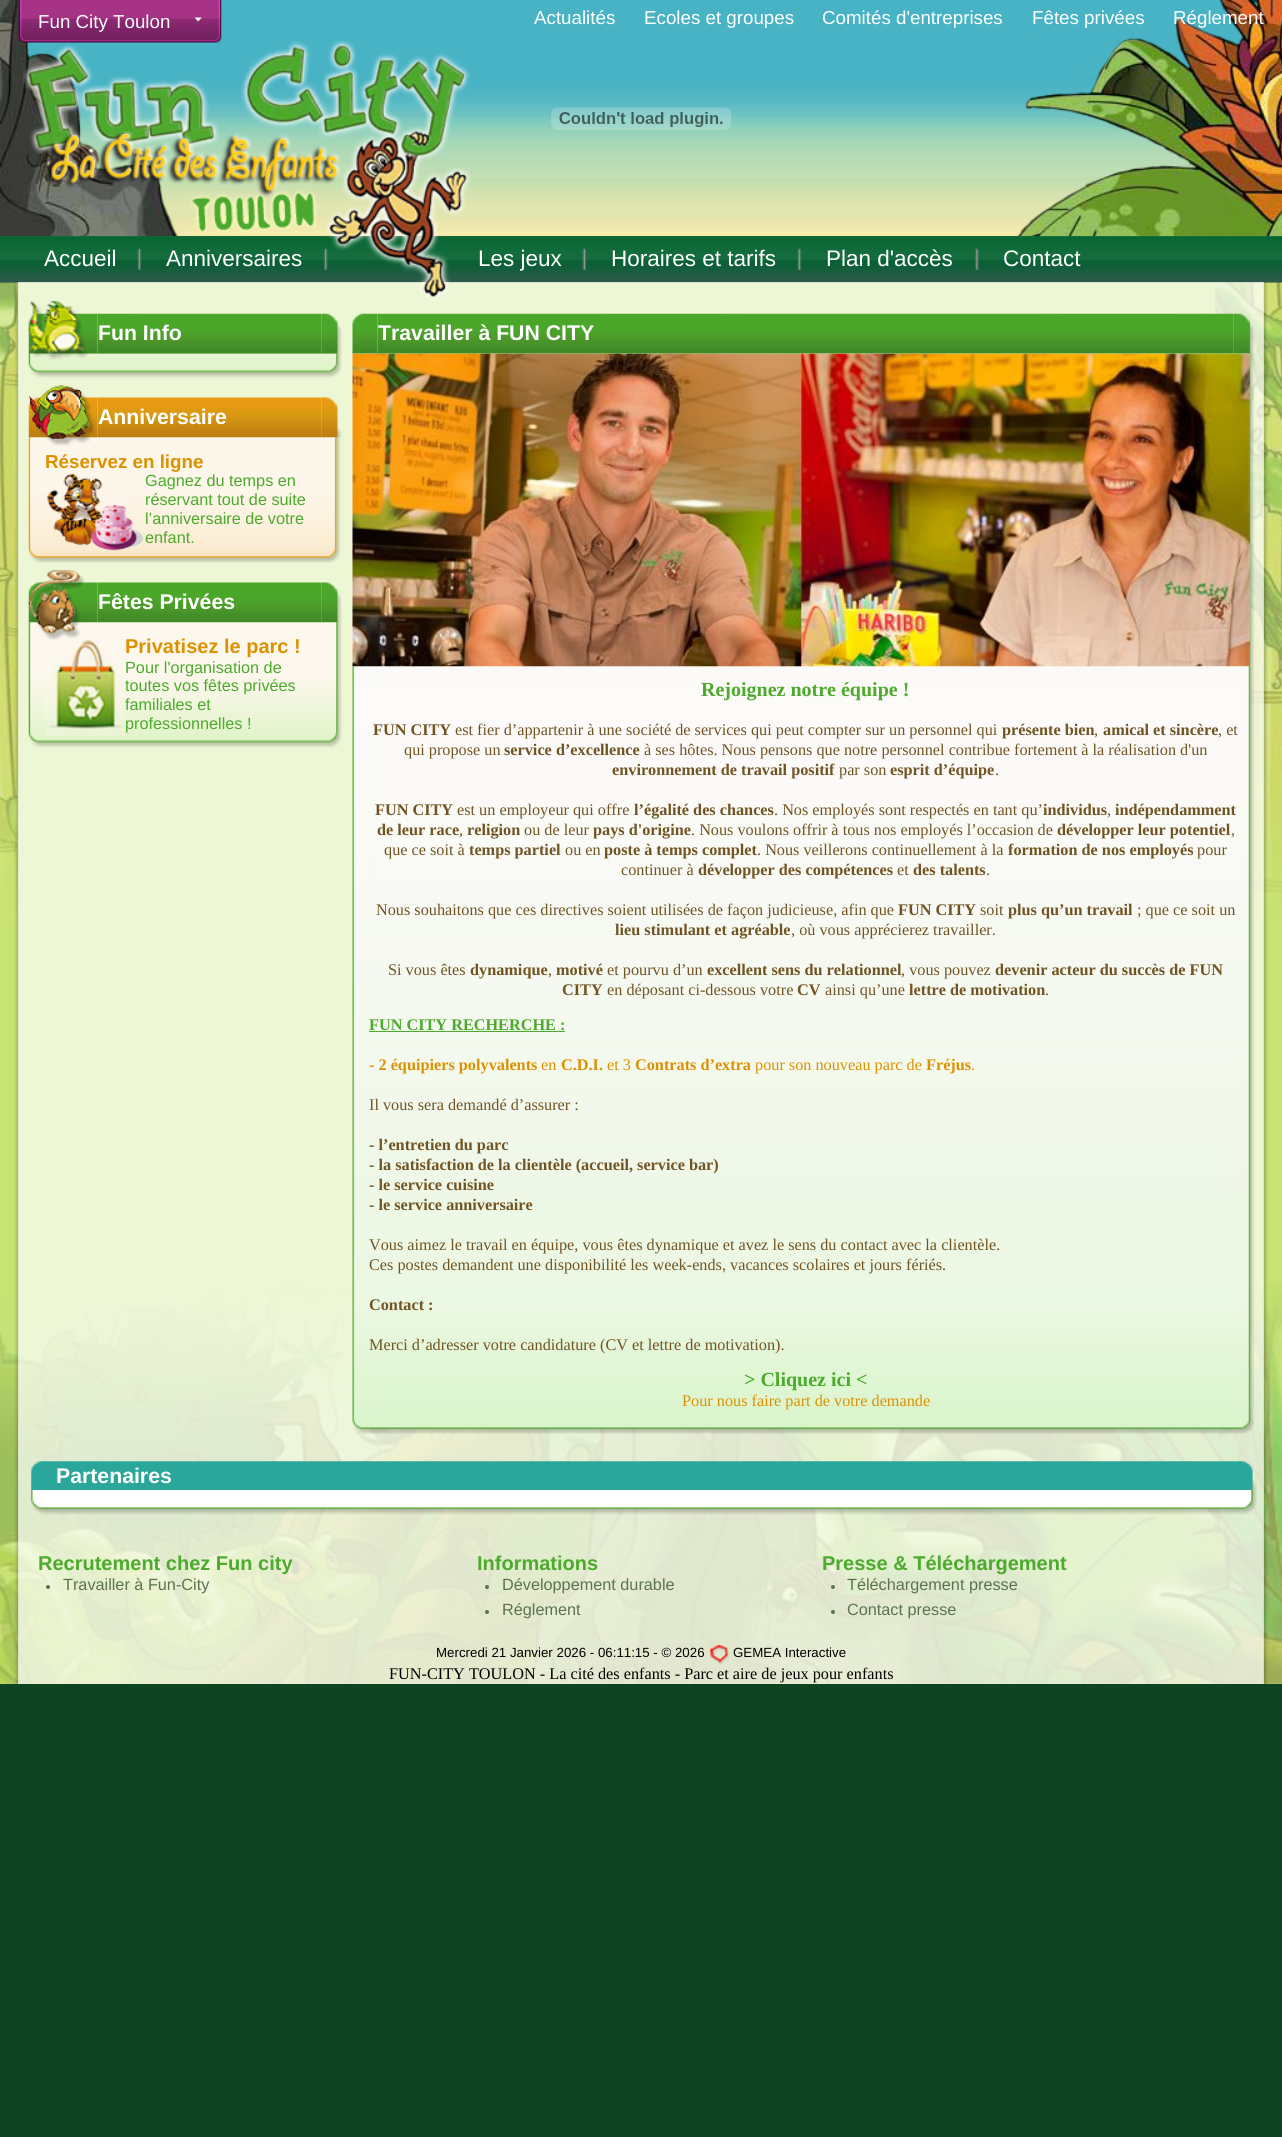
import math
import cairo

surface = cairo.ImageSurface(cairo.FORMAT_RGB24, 1282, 2137)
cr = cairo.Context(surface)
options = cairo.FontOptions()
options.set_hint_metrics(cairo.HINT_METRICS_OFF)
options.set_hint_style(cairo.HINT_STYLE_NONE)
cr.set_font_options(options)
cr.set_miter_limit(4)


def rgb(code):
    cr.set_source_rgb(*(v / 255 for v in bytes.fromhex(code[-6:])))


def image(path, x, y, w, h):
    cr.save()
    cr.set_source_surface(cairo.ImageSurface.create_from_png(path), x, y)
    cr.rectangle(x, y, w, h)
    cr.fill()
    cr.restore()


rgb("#0e4422")
cr.paint()
image("img/1.png", 0, 0, 1282, 237)
image("img/2.png", 0, 0, 1282, 237)
image("img/9.png", 0, 236, 1282, 47)
image("img/11.png", 0, 282, 1282, 639)
rgb("#c7e372")
cr.rectangle(0, 921, 1282, 763)
cr.fill()
image("img/10.png", 0, 1281, 1282, 403)
image("img/12.png", 14, 282, 5, 1402)
cr.set_source_rgba(1, 1, 1, 0.7)
cr.rectangle(18, 282, 1246, 1402)
cr.fill()
image("img/4.png", 22, 40, 449, 261)
image("img/3.png", 18, 0, 204, 43)
image("img/5.png", 137, 248, 5, 22)
image("img/6.png", 323, 248, 5, 22)
image("img/5.png", 582, 248, 5, 22)
image("img/5.png", 797, 248, 5, 22)
image("img/7.png", 975, 248, 4, 22)
image("img/8.png", 551, 107, 181, 23)
image("img/14.png", 28, 313, 70, 41)
image("img/17.png", 28, 353, 17, 25)
image("img/15.png", 97, 313, 225, 41)
image("img/16.png", 321, 313, 21, 41)
image("img/18.png", 45, 353, 285, 25)
image("img/13.png", 28, 301, 61, 59)
image("img/19.png", 330, 353, 12, 25)
image("img/21.png", 28, 397, 70, 41)
image("img/24.png", 28, 437, 17, 126)
image("img/22.png", 97, 397, 225, 41)
image("img/23.png", 321, 397, 21, 41)
image("img/25.png", 45, 437, 285, 126)
image("img/20.png", 28, 385, 67, 61)
image("img/26.png", 47, 473, 97, 78)
image("img/27.png", 330, 437, 11, 126)
image("img/29.png", 28, 582, 70, 41)
image("img/32.png", 28, 622, 17, 126)
image("img/30.png", 97, 582, 225, 41)
image("img/31.png", 321, 582, 21, 41)
image("img/33.png", 45, 622, 285, 126)
image("img/34.png", 45, 639, 80, 97)
image("img/28.png", 28, 570, 57, 70)
image("img/35.png", 330, 622, 12, 126)
image("img/36.png", 352, 313, 26, 41)
image("img/37.png", 377, 313, 857, 41)
image("img/38.png", 1233, 313, 21, 41)
image("img/39.png", 352, 353, 903, 314)
image("img/41.png", 352, 666, 17, 768)
image("img/42.png", 368, 666, 875, 768)
image("img/43.png", 1242, 666, 13, 768)
image("img/40.png", 352, 353, 898, 314)
rgb("#4caa2c")
cr.rectangle(369, 1031, 196, 1)
cr.fill()
image("img/44.png", 31, 1461, 1226, 29)
image("img/45.png", 31, 1490, 1226, 25)
rgb("#5a744f")
cr.arc(48, 1587, 2, 0, 2 * math.pi)
cr.fill()
cr.arc(487, 1587, 2, 0, 2 * math.pi)
cr.fill()
cr.arc(487, 1612, 2, 0, 2 * math.pi)
cr.fill()
cr.arc(833, 1587, 2, 0, 2 * math.pi)
cr.fill()
cr.arc(833, 1612, 2, 0, 2 * math.pi)
cr.fill()
image("img/46.png", 709, 1644, 20, 20)
image("img/47.png", 1263, 282, 5, 1402)
cr.select_font_face("Liberation Sans")
cr.set_font_size(18.75)
rgb("#ffffff")
for x, y, s in [
    (38, 28, "Fun City Toulon"),
    (534, 24, "Actualités"),
    (644, 24, "Ecoles et groupes"),
    (822, 24, "Comités d'entreprises"),
    (1032, 24, "Fêtes privées"),
    (1173, 24, "Réglement"),
]:
    cr.move_to(x, y)
    cr.show_text(s)
cr.set_font_size(22.5)
for x, y, s in [
    (44, 266, "Accueil"),
    (166, 266, "Anniversaires"),
    (478, 266, "Les jeux"),
    (611, 266, "Horaires et tarifs"),
    (826, 266, "Plan d'accès"),
    (1003, 266, "Contact"),
]:
    cr.move_to(x, y)
    cr.show_text(s)
cr.select_font_face("Liberation Sans", cairo.FONT_SLANT_NORMAL, cairo.FONT_WEIGHT_BOLD)
cr.set_font_size(21.25)
cr.move_to(98, 340)
cr.show_text("Fun Info")
cr.move_to(98, 424)
cr.show_text("Anniversaire")
cr.set_font_size(18.75)
rgb("#dd9100")
cr.move_to(45, 468)
cr.show_text("Réservez en ligne")
cr.select_font_face("Liberation Sans")
cr.set_font_size(16.25)
rgb("#4caa2c")
for x, y, s in [
    (145, 486, "Gagnez du temps en"),
    (145, 505, "réservant tout de suite"),
    (145, 524, "l’anniversaire de votre"),
    (145, 543, "enfant."),
]:
    cr.move_to(x, y)
    cr.show_text(s)
cr.select_font_face("Liberation Sans", cairo.FONT_SLANT_NORMAL, cairo.FONT_WEIGHT_BOLD)
cr.set_font_size(21.25)
rgb("#ffffff")
cr.move_to(98, 609)
cr.show_text("Fêtes Privées")
cr.set_font_size(20)
rgb("#dd9100")
cr.move_to(125, 653)
cr.show_text("Privatisez le parc !")
cr.select_font_face("Liberation Sans")
cr.set_font_size(16.25)
rgb("#4caa2c")
for x, y, s in [
    (125, 673, "Pour l'organisation de"),
    (125, 691, "toutes vos fêtes privées"),
    (125, 710, "familiales et"),
    (125, 729, "professionnelles !"),
]:
    cr.move_to(x, y)
    cr.show_text(s)
cr.select_font_face("Liberation Sans", cairo.FONT_SLANT_NORMAL, cairo.FONT_WEIGHT_BOLD)
cr.set_font_size(21.25)
rgb("#ffffff")
cr.move_to(378, 340)
cr.show_text("Travailler à FUN CITY")
cr.select_font_face("Liberation Serif", cairo.FONT_SLANT_NORMAL, cairo.FONT_WEIGHT_BOLD)
cr.set_font_size(20)
rgb("#4caa2c")
cr.move_to(701, 696)
cr.show_text("Rejoignez notre équipe !")
cr.set_font_size(16.25)
rgb("#715422")
cr.move_to(373, 735)
cr.show_text("FUN CITY")
cr.select_font_face("Liberation Serif")
cr.move_to(455, 735)
cr.show_text("est fier d’appartenir à une société de services qui peut compter sur un personnel qui")
cr.select_font_face("Liberation Serif", cairo.FONT_SLANT_NORMAL, cairo.FONT_WEIGHT_BOLD)
cr.move_to(1002, 735)
cr.show_text("présente bien")
cr.select_font_face("Liberation Serif")
cr.move_to(1094, 735)
cr.show_text(",")
cr.select_font_face("Liberation Serif", cairo.FONT_SLANT_NORMAL, cairo.FONT_WEIGHT_BOLD)
cr.move_to(1103, 735)
cr.show_text("amical et sincère")
cr.select_font_face("Liberation Serif")
cr.move_to(1218, 735)
cr.show_text(", et")
cr.move_to(404, 755)
cr.show_text("qui propose un")
cr.select_font_face("Liberation Serif", cairo.FONT_SLANT_NORMAL, cairo.FONT_WEIGHT_BOLD)
cr.move_to(504, 755)
cr.show_text("service d’excellence")
cr.select_font_face("Liberation Serif")
cr.move_to(644, 755)
cr.show_text("à ses hôtes. Nous pensons que notre personnel contribue fortement à la réalisation d'un")
cr.select_font_face("Liberation Serif", cairo.FONT_SLANT_NORMAL, cairo.FONT_WEIGHT_BOLD)
cr.move_to(612, 775)
cr.show_text("environnement de travail positif")
cr.select_font_face("Liberation Serif")
cr.move_to(839, 775)
cr.show_text("par son")
cr.select_font_face("Liberation Serif", cairo.FONT_SLANT_NORMAL, cairo.FONT_WEIGHT_BOLD)
cr.move_to(890, 775)
cr.show_text("esprit d’équipe")
cr.select_font_face("Liberation Serif")
cr.move_to(995, 775)
cr.show_text(".")
cr.select_font_face("Liberation Serif", cairo.FONT_SLANT_NORMAL, cairo.FONT_WEIGHT_BOLD)
cr.move_to(375, 815)
cr.show_text("FUN CITY")
cr.select_font_face("Liberation Serif")
cr.move_to(457, 815)
cr.show_text("est un employeur qui offre")
cr.select_font_face("Liberation Serif", cairo.FONT_SLANT_NORMAL, cairo.FONT_WEIGHT_BOLD)
cr.move_to(634, 815)
cr.show_text("l’égalité des chances")
cr.select_font_face("Liberation Serif")
cr.move_to(774, 815)
cr.show_text(". Nos employés sont respectés en tant qu’")
cr.select_font_face("Liberation Serif", cairo.FONT_SLANT_NORMAL, cairo.FONT_WEIGHT_BOLD)
cr.move_to(1043, 815)
cr.show_text("individus")
cr.select_font_face("Liberation Serif")
cr.move_to(1107, 815)
cr.show_text(",")
cr.select_font_face("Liberation Serif", cairo.FONT_SLANT_NORMAL, cairo.FONT_WEIGHT_BOLD)
cr.move_to(1115, 815)
cr.show_text("indépendamment")
cr.move_to(377, 835)
cr.show_text("de leur race")
cr.select_font_face("Liberation Serif")
cr.move_to(459, 835)
cr.show_text(",")
cr.select_font_face("Liberation Serif", cairo.FONT_SLANT_NORMAL, cairo.FONT_WEIGHT_BOLD)
cr.move_to(467, 835)
cr.show_text("religion")
cr.select_font_face("Liberation Serif")
cr.move_to(524, 835)
cr.show_text("ou de leur")
cr.select_font_face("Liberation Serif", cairo.FONT_SLANT_NORMAL, cairo.FONT_WEIGHT_BOLD)
cr.move_to(593, 835)
cr.show_text("pays d'origine")
cr.select_font_face("Liberation Serif")
cr.move_to(691, 835)
cr.show_text(". Nous voulons offrir à tous nos employés l’occasion de")
cr.select_font_face("Liberation Serif", cairo.FONT_SLANT_NORMAL, cairo.FONT_WEIGHT_BOLD)
cr.move_to(1057, 835)
cr.show_text("développer leur potentiel")
cr.select_font_face("Liberation Serif")
cr.move_to(1231, 835)
cr.show_text(",")
cr.move_to(384, 855)
cr.show_text("que ce soit à")
cr.select_font_face("Liberation Serif", cairo.FONT_SLANT_NORMAL, cairo.FONT_WEIGHT_BOLD)
cr.move_to(469, 855)
cr.show_text("temps partiel")
cr.select_font_face("Liberation Serif")
cr.move_to(565, 855)
cr.show_text("ou en")
cr.select_font_face("Liberation Serif", cairo.FONT_SLANT_NORMAL, cairo.FONT_WEIGHT_BOLD)
cr.move_to(604, 855)
cr.show_text("poste à temps complet")
cr.select_font_face("Liberation Serif")
cr.move_to(757, 855)
cr.show_text(". Nous veillerons continuellement à la")
cr.select_font_face("Liberation Serif", cairo.FONT_SLANT_NORMAL, cairo.FONT_WEIGHT_BOLD)
cr.move_to(1008, 855)
cr.show_text("formation de nos employés")
cr.select_font_face("Liberation Serif")
cr.move_to(1197, 855)
cr.show_text("pour")
cr.move_to(621, 875)
cr.show_text("continuer à")
cr.select_font_face("Liberation Serif", cairo.FONT_SLANT_NORMAL, cairo.FONT_WEIGHT_BOLD)
cr.move_to(698, 875)
cr.show_text("développer des compétences")
cr.select_font_face("Liberation Serif")
cr.move_to(897, 875)
cr.show_text("et")
cr.select_font_face("Liberation Serif", cairo.FONT_SLANT_NORMAL, cairo.FONT_WEIGHT_BOLD)
cr.move_to(913, 875)
cr.show_text("des talents")
cr.select_font_face("Liberation Serif")
cr.move_to(986, 875)
cr.show_text(".")
cr.move_to(376, 915)
cr.show_text("Nous souhaitons que ces directives soient utilisées de façon judicieuse, afin que")
cr.select_font_face("Liberation Serif", cairo.FONT_SLANT_NORMAL, cairo.FONT_WEIGHT_BOLD)
cr.move_to(898, 915)
cr.show_text("FUN CITY")
cr.select_font_face("Liberation Serif")
cr.move_to(980, 915)
cr.show_text("soit")
cr.select_font_face("Liberation Serif", cairo.FONT_SLANT_NORMAL, cairo.FONT_WEIGHT_BOLD)
cr.move_to(1008, 915)
cr.show_text("plus qu’un travail")
cr.select_font_face("Liberation Serif")
cr.move_to(1137, 915)
cr.show_text("; que ce soit un")
cr.select_font_face("Liberation Serif", cairo.FONT_SLANT_NORMAL, cairo.FONT_WEIGHT_BOLD)
cr.move_to(615, 935)
cr.show_text("lieu stimulant et agréable")
cr.select_font_face("Liberation Serif")
cr.move_to(791, 935)
cr.show_text(", où vous apprécierez travailler.")
cr.move_to(388, 975)
cr.show_text("Si vous êtes")
cr.select_font_face("Liberation Serif", cairo.FONT_SLANT_NORMAL, cairo.FONT_WEIGHT_BOLD)
cr.move_to(470, 975)
cr.show_text("dynamique")
cr.select_font_face("Liberation Serif")
cr.move_to(548, 975)
cr.show_text(",")
cr.select_font_face("Liberation Serif", cairo.FONT_SLANT_NORMAL, cairo.FONT_WEIGHT_BOLD)
cr.move_to(556, 975)
cr.show_text("motivé")
cr.select_font_face("Liberation Serif")
cr.move_to(607, 975)
cr.show_text("et pourvu d’un")
cr.select_font_face("Liberation Serif", cairo.FONT_SLANT_NORMAL, cairo.FONT_WEIGHT_BOLD)
cr.move_to(707, 975)
cr.show_text("excellent sens du relationnel")
cr.select_font_face("Liberation Serif")
cr.move_to(901, 975)
cr.show_text(", vous pouvez")
cr.select_font_face("Liberation Serif", cairo.FONT_SLANT_NORMAL, cairo.FONT_WEIGHT_BOLD)
cr.move_to(995, 975)
cr.show_text("devenir acteur du succès de FUN")
cr.move_to(562, 995)
cr.show_text("CITY")
cr.select_font_face("Liberation Serif")
cr.move_to(607, 995)
cr.show_text("en déposant ci-dessous votre")
cr.select_font_face("Liberation Serif", cairo.FONT_SLANT_NORMAL, cairo.FONT_WEIGHT_BOLD)
cr.move_to(797, 995)
cr.show_text("CV")
cr.select_font_face("Liberation Serif")
cr.move_to(825, 995)
cr.show_text("ainsi qu’une")
cr.select_font_face("Liberation Serif", cairo.FONT_SLANT_NORMAL, cairo.FONT_WEIGHT_BOLD)
cr.move_to(909, 995)
cr.show_text("lettre de motivation")
cr.select_font_face("Liberation Serif")
cr.move_to(1045, 995)
cr.show_text(".")
cr.select_font_face("Liberation Serif", cairo.FONT_SLANT_NORMAL, cairo.FONT_WEIGHT_BOLD)
rgb("#4caa2c")
cr.move_to(369, 1030)
cr.show_text("FUN CITY RECHERCHE :")
rgb("#dd9100")
cr.move_to(369, 1070)
cr.show_text("- 2 équipiers polyvalents")
cr.select_font_face("Liberation Serif")
cr.move_to(541, 1070)
cr.show_text("en")
cr.select_font_face("Liberation Serif", cairo.FONT_SLANT_NORMAL, cairo.FONT_WEIGHT_BOLD)
cr.move_to(561, 1070)
cr.show_text("C.D.I.")
cr.select_font_face("Liberation Serif")
cr.move_to(607, 1070)
cr.show_text("et 3")
cr.select_font_face("Liberation Serif", cairo.FONT_SLANT_NORMAL, cairo.FONT_WEIGHT_BOLD)
cr.move_to(635, 1070)
cr.show_text("Contrats d’extra")
cr.select_font_face("Liberation Serif")
cr.move_to(755, 1070)
cr.show_text("pour son nouveau parc de")
cr.select_font_face("Liberation Serif", cairo.FONT_SLANT_NORMAL, cairo.FONT_WEIGHT_BOLD)
cr.move_to(926, 1070)
cr.show_text("Fréjus")
cr.select_font_face("Liberation Serif")
cr.move_to(971, 1070)
cr.show_text(".")
rgb("#715422")
cr.move_to(369, 1110)
cr.show_text("Il vous sera demandé d’assurer :")
cr.select_font_face("Liberation Serif", cairo.FONT_SLANT_NORMAL, cairo.FONT_WEIGHT_BOLD)
for x, y, s in [
    (369, 1150, "- l’entretien du parc"),
    (369, 1170, "- la satisfaction de la clientèle (accueil, service bar)"),
    (369, 1190, "- le service cuisine"),
    (369, 1210, "- le service anniversaire"),
]:
    cr.move_to(x, y)
    cr.show_text(s)
cr.select_font_face("Liberation Serif")
cr.move_to(369, 1250)
cr.show_text("Vous aimez le travail en équipe, vous êtes dynamique et avez le sens du contact avec la clientèle.")
cr.move_to(369, 1270)
cr.show_text("Ces postes demandent une disponibilité les week-ends, vacances scolaires et jours fériés.")
cr.select_font_face("Liberation Serif", cairo.FONT_SLANT_NORMAL, cairo.FONT_WEIGHT_BOLD)
cr.move_to(369, 1310)
cr.show_text("Contact :")
cr.select_font_face("Liberation Serif")
cr.move_to(369, 1350)
cr.show_text("Merci d’adresser votre candidature (CV et lettre de motivation).")
cr.select_font_face("Liberation Serif", cairo.FONT_SLANT_NORMAL, cairo.FONT_WEIGHT_BOLD)
cr.set_font_size(20)
rgb("#4caa2c")
cr.move_to(744, 1386)
cr.show_text("> Cliquez ici <")
cr.select_font_face("Liberation Serif")
cr.set_font_size(16.25)
rgb("#dd9100")
cr.move_to(682, 1406)
cr.show_text("Pour nous faire part de votre demande")
cr.select_font_face("Liberation Sans", cairo.FONT_SLANT_NORMAL, cairo.FONT_WEIGHT_BOLD)
cr.set_font_size(21.25)
rgb("#ffffff")
cr.move_to(56, 1483)
cr.show_text("Partenaires")
cr.set_font_size(20)
rgb("#4caa2c")
cr.move_to(38, 1570)
cr.show_text("Recrutement chez Fun city")
cr.select_font_face("Liberation Sans")
cr.set_font_size(16.25)
rgb("#5a744f")
cr.move_to(63, 1590)
cr.show_text("Travailler à Fun-City")
cr.select_font_face("Liberation Sans", cairo.FONT_SLANT_NORMAL, cairo.FONT_WEIGHT_BOLD)
cr.set_font_size(20)
rgb("#4caa2c")
cr.move_to(477, 1570)
cr.show_text("Informations")
cr.select_font_face("Liberation Sans")
cr.set_font_size(16.25)
rgb("#5a744f")
cr.move_to(502, 1590)
cr.show_text("Développement durable")
cr.move_to(502, 1615)
cr.show_text("Réglement")
cr.select_font_face("Liberation Sans", cairo.FONT_SLANT_NORMAL, cairo.FONT_WEIGHT_BOLD)
cr.set_font_size(20)
rgb("#4caa2c")
cr.move_to(822, 1570)
cr.show_text("Presse & Téléchargement")
cr.select_font_face("Liberation Sans")
cr.set_font_size(16.25)
rgb("#5a744f")
cr.move_to(847, 1590)
cr.show_text("Téléchargement presse")
cr.move_to(847, 1615)
cr.show_text("Contact presse")
cr.set_font_size(13.3)
rgb("#000000")
cr.move_to(436, 1657)
cr.show_text("Mercredi 21 Janvier 2026 - 06:11:15 - © 2026")
cr.move_to(733, 1657)
cr.show_text("GEMEA Interactive")
cr.select_font_face("Liberation Serif")
cr.set_font_size(16.25)
cr.move_to(389, 1679)
cr.show_text("FUN-CITY TOULON - La cité des enfants - Parc et aire de jeux pour enfants")
surface.write_to_png("page.png")
